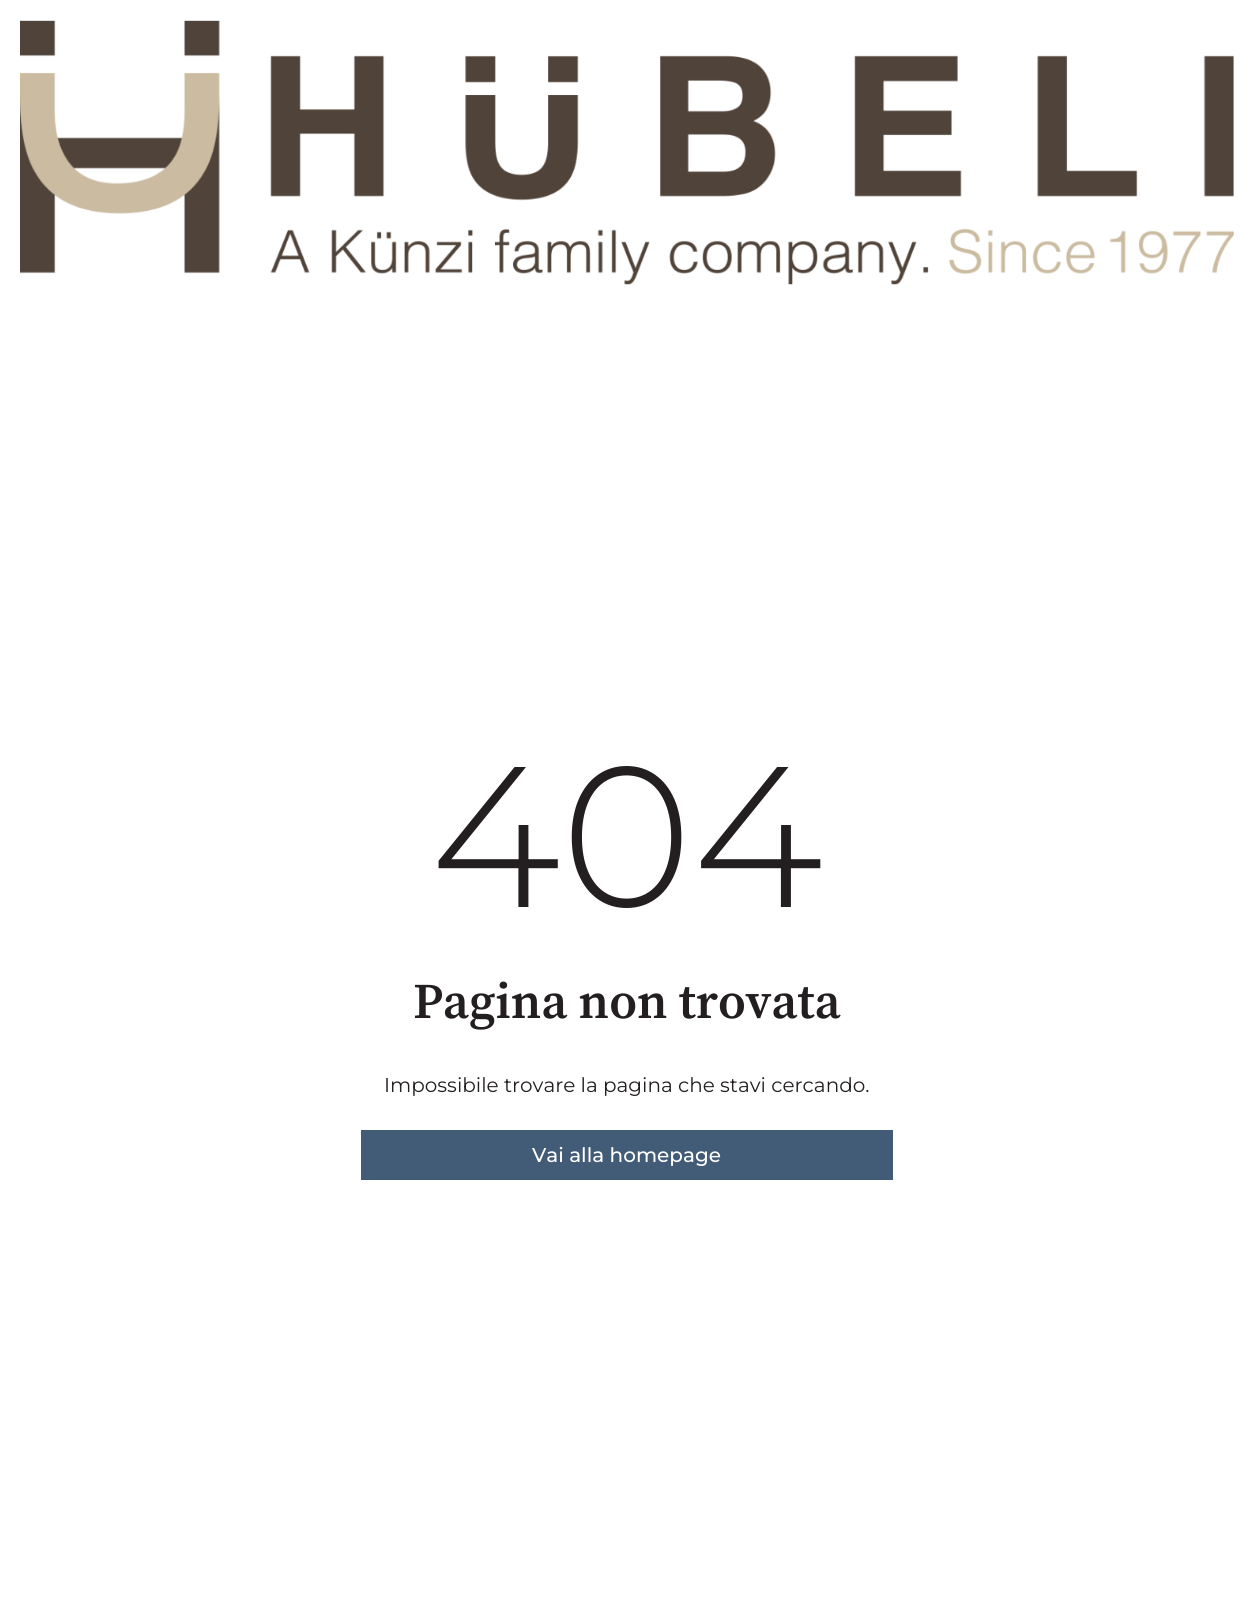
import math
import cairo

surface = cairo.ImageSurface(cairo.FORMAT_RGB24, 1253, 1609)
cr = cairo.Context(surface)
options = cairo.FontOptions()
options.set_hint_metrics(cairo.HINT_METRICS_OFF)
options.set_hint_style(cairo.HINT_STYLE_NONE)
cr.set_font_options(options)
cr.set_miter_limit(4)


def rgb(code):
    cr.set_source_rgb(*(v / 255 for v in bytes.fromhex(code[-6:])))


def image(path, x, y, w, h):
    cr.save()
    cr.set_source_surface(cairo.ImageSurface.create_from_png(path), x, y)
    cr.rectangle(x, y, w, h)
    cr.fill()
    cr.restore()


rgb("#ffffff")
cr.paint()
image("img/1.png", 20, 20, 1214, 265)
rgb("#425b76")
cr.rectangle(361, 1130, 532, 50)
cr.fill()
cr.select_font_face("Montserrat Light")
cr.set_font_size(200)
rgb("#231f20")
cr.move_to(430, 907)
cr.show_text("404")
cr.select_font_face("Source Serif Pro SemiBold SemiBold")
cr.set_font_size(50)
cr.move_to(413, 1018)
cr.show_text("Pagina non trovata")
cr.select_font_face("Montserrat")
cr.set_font_size(20)
cr.move_to(384, 1092)
cr.show_text("Impossibile trovare la pagina che stavi cercando.")
cr.select_font_face("Montserrat Medium")
rgb("#ffffff")
cr.move_to(532, 1162)
cr.show_text("Vai alla homepage")
surface.write_to_png("page.png")
